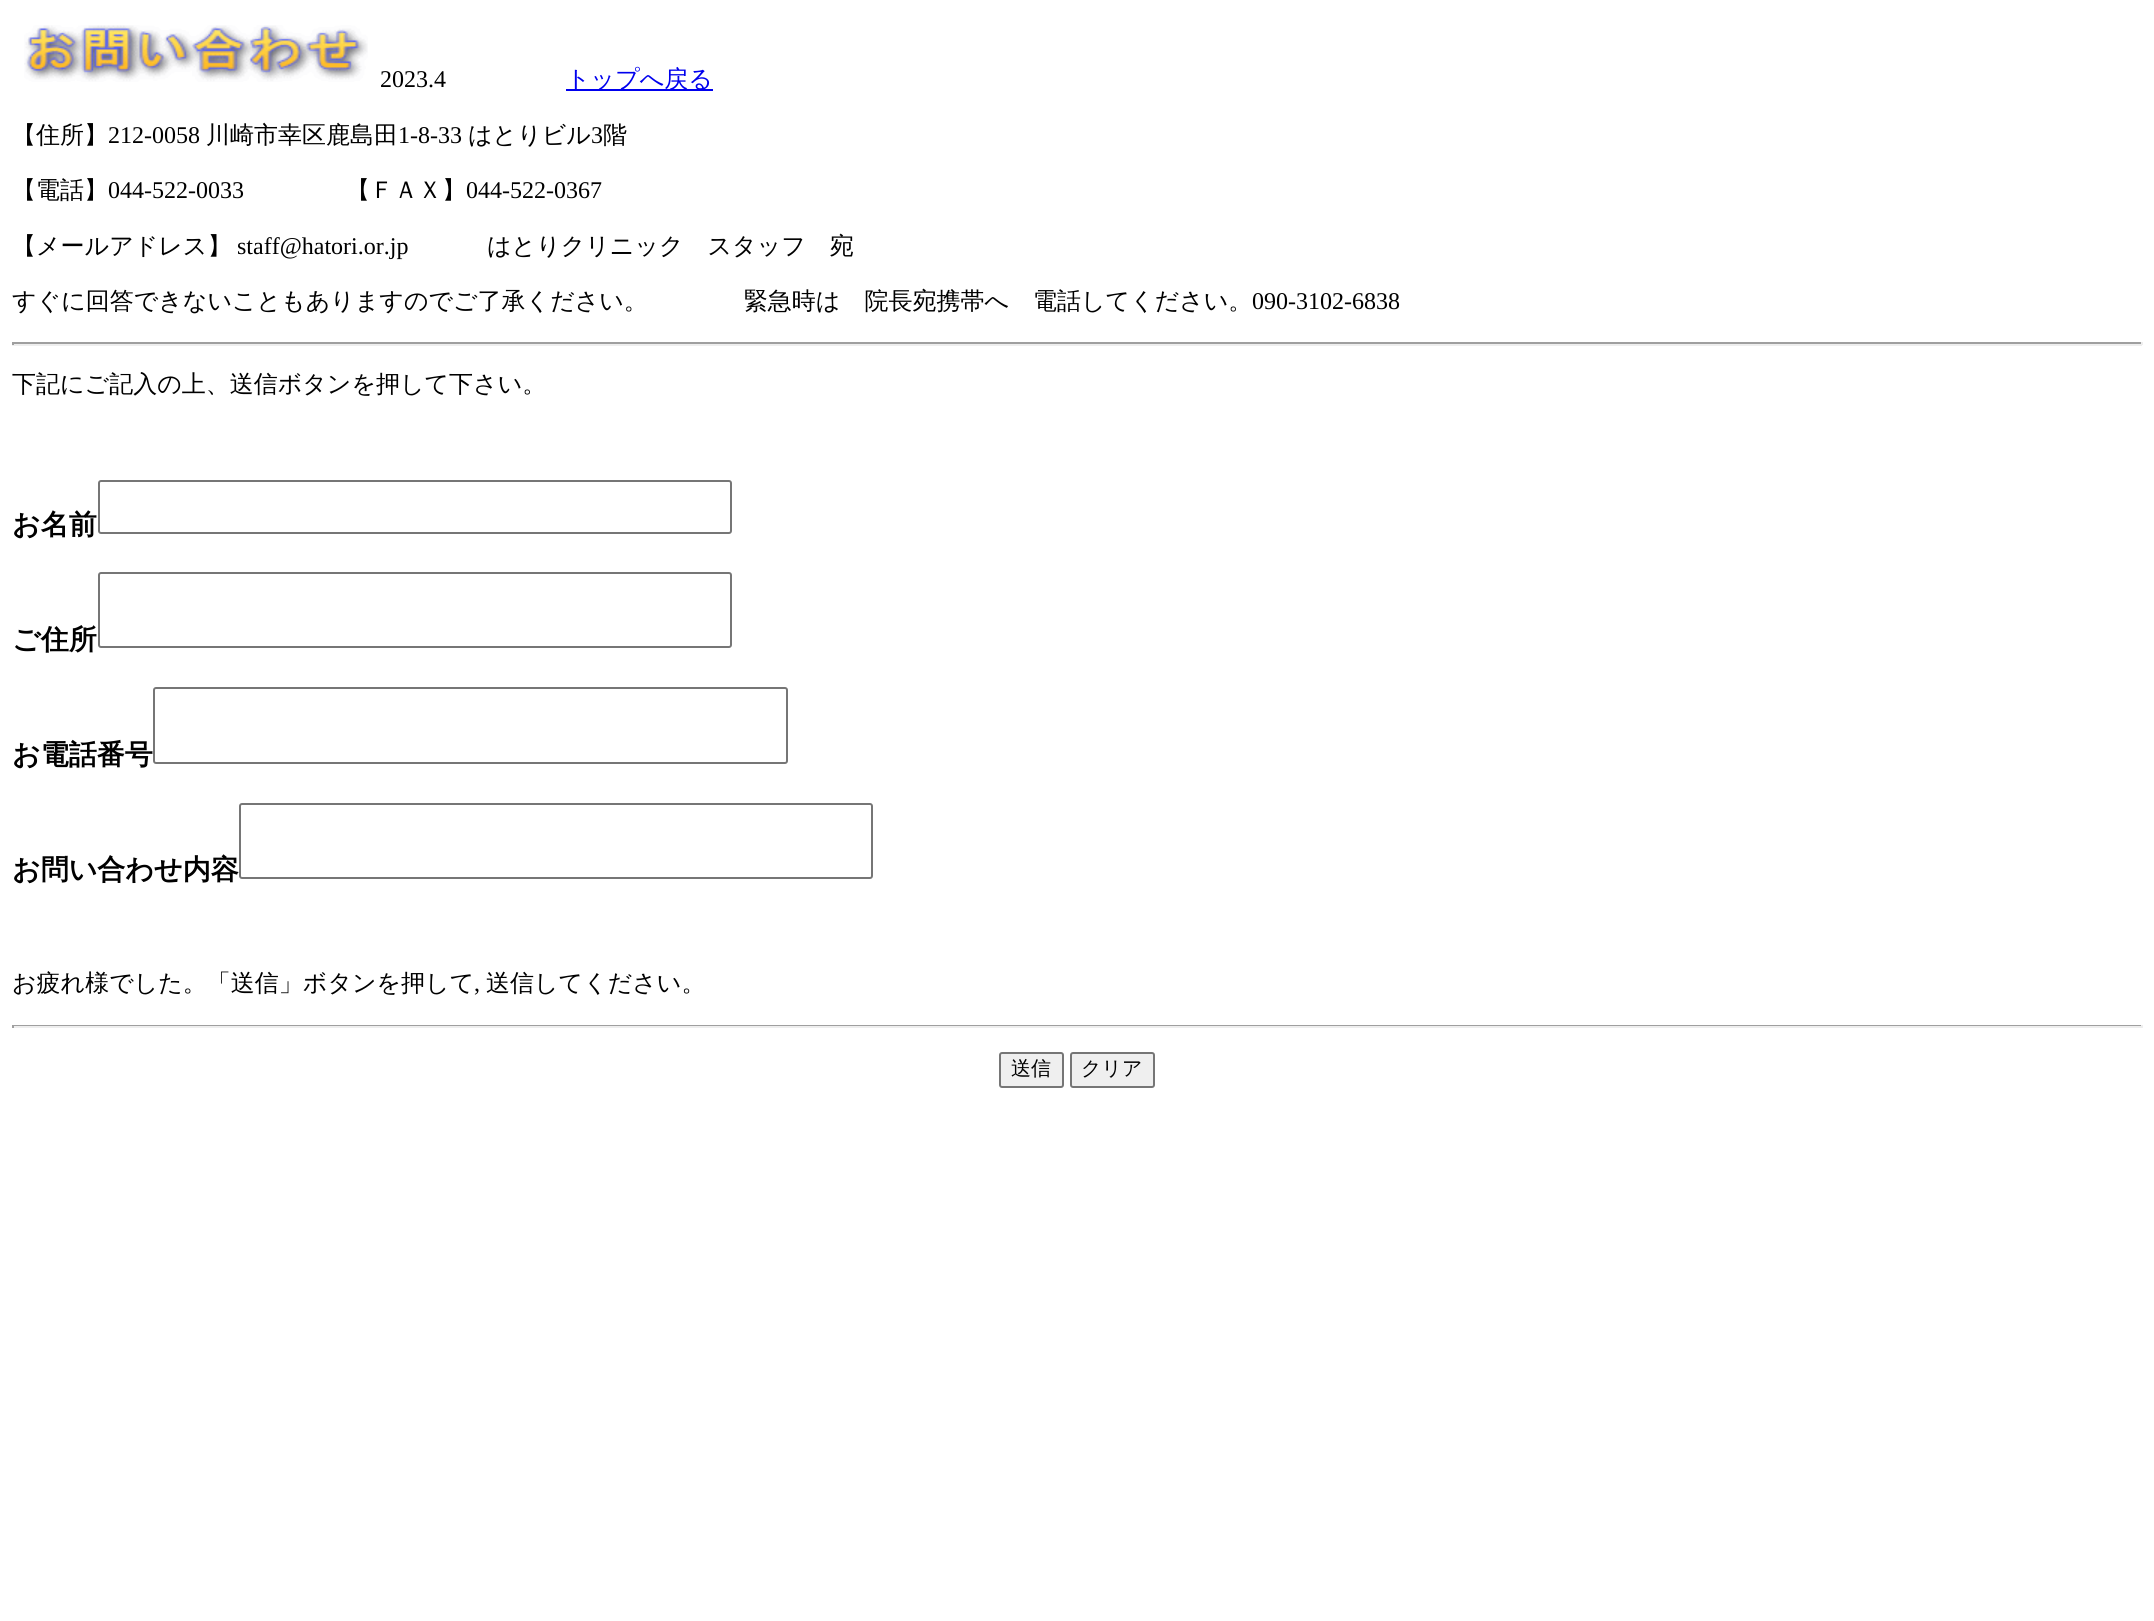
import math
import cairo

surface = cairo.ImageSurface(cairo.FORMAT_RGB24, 2154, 1621)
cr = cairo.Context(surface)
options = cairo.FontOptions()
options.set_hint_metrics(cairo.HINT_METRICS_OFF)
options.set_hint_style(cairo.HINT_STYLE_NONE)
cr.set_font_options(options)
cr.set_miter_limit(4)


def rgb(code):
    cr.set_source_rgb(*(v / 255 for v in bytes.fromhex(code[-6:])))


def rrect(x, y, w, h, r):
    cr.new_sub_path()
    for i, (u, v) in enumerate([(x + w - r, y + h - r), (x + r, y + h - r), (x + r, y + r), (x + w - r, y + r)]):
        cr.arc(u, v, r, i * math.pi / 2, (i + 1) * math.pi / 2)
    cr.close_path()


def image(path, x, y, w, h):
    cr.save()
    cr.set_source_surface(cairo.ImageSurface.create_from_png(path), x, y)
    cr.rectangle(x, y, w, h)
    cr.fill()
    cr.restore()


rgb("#ffffff")
cr.paint()
image("img/1.png", 24, 25, 344, 57)
for x, y, w, h, color in [
    (566, 89, 147, 2, "#0000ee"),
    (12, 342, 2130, 2, "#9f9f9f"),
    (2141, 342, 2, 3, "#eeeeee"),
    (12, 344, 2130, 2, "#eeeeee"),
    (12, 342, 2, 3, "#9f9f9f"),
]:
    rgb(color)
    cr.rectangle(x, y, w, h)
    cr.fill()
rrect(99, 481, 632, 52, 2)
rgb("#767676")
cr.stroke()
rrect(99, 573, 632, 74, 2)
cr.stroke()
rrect(154, 688, 633, 75, 2)
cr.stroke()
rrect(240, 804, 632, 74, 2)
cr.stroke()
for x, y, w, h, color in [
    (12, 1025, 2130, 1, "#9f9f9f"),
    (2141, 1025, 2, 3, "#eeeeee"),
    (12, 1026, 2130, 2, "#eeeeee"),
    (12, 1025, 2, 3, "#9f9f9f"),
]:
    rgb(color)
    cr.rectangle(x, y, w, h)
    cr.fill()
rgb("#efefef")
rrect(1000, 1053, 63, 34, 2)
cr.fill_preserve()
rgb("#767676")
cr.stroke()
rgb("#efefef")
rrect(1071, 1053, 83, 34, 2)
cr.fill_preserve()
rgb("#767676")
cr.stroke()
cr.select_font_face("Liberation Serif")
cr.set_font_size(24)
rgb("#000000")
cr.move_to(380, 87)
cr.show_text("2023.4")
cr.select_font_face("WenQuanYi Zen Hei Medium")
rgb("#0000ee")
cr.move_to(566, 87)
cr.show_text("トップへ戻る")
rgb("#000000")
cr.move_to(12, 143)
cr.show_text("【住所】")
cr.select_font_face("Liberation Serif")
cr.move_to(108, 143)
cr.show_text("212-0058")
cr.select_font_face("WenQuanYi Zen Hei Medium")
cr.move_to(206, 143)
cr.show_text("川崎市幸区鹿島田")
cr.select_font_face("Liberation Serif")
cr.move_to(398, 143)
cr.show_text("1-8-33")
cr.select_font_face("WenQuanYi Zen Hei Medium")
cr.move_to(468, 143)
cr.show_text("はとりビル")
cr.select_font_face("Liberation Serif")
cr.move_to(591, 143)
cr.show_text("3")
cr.select_font_face("WenQuanYi Zen Hei Medium")
cr.move_to(603, 143)
cr.show_text("階")
cr.move_to(12, 198)
cr.show_text("【電話】")
cr.select_font_face("Liberation Serif")
cr.move_to(108, 198)
cr.show_text("044-522-0033")
cr.select_font_face("WenQuanYi Zen Hei Medium")
cr.move_to(346, 198)
cr.show_text("【ＦＡＸ】")
cr.select_font_face("Liberation Serif")
cr.move_to(466, 198)
cr.show_text("044-522-0367")
cr.select_font_face("WenQuanYi Zen Hei Medium")
cr.move_to(12, 254)
cr.show_text("【メールアドレス】")
cr.select_font_face("Liberation Serif")
cr.move_to(237, 254)
cr.show_text("staff@hatori.or.jp")
cr.select_font_face("WenQuanYi Zen Hei Medium")
cr.move_to(487, 254)
cr.show_text("はとりクリニック　スタッフ　宛")
cr.move_to(12, 309)
cr.show_text("すぐに回答できないこともありますのでご了承ください。　　　　緊急時は　院長宛携帯へ　電話してください。")
cr.select_font_face("Liberation Serif")
cr.move_to(1252, 309)
cr.show_text("090-3102-6838")
cr.select_font_face("WenQuanYi Zen Hei Medium")
cr.move_to(12, 392)
cr.show_text("下記にご記入の上、送信ボタンを押して下さい。")
cr.select_font_face("WenQuanYi Zen Hei", cairo.FONT_SLANT_NORMAL, cairo.FONT_WEIGHT_BOLD)
cr.set_font_size(28)
for x, y, s in [
    (12, 534, "お名前"),
    (12, 649, "ご住所"),
    (12, 764, "お電話番号"),
    (12, 879, "お問い合わせ内容"),
]:
    cr.move_to(x, y)
    cr.show_text(s)
cr.select_font_face("WenQuanYi Zen Hei Medium")
cr.set_font_size(24)
cr.move_to(12, 991)
cr.show_text("お疲れ様でした。「送信」ボタンを押して")
cr.select_font_face("Liberation Serif")
cr.move_to(474, 991)
cr.show_text(",")
cr.select_font_face("WenQuanYi Zen Hei Medium")
cr.move_to(486, 991)
cr.show_text("送信してください。")
cr.set_font_size(20)
cr.move_to(1011, 1075)
cr.show_text("送信")
cr.move_to(1081, 1075)
cr.show_text("クリア")
surface.write_to_png("page.png")
